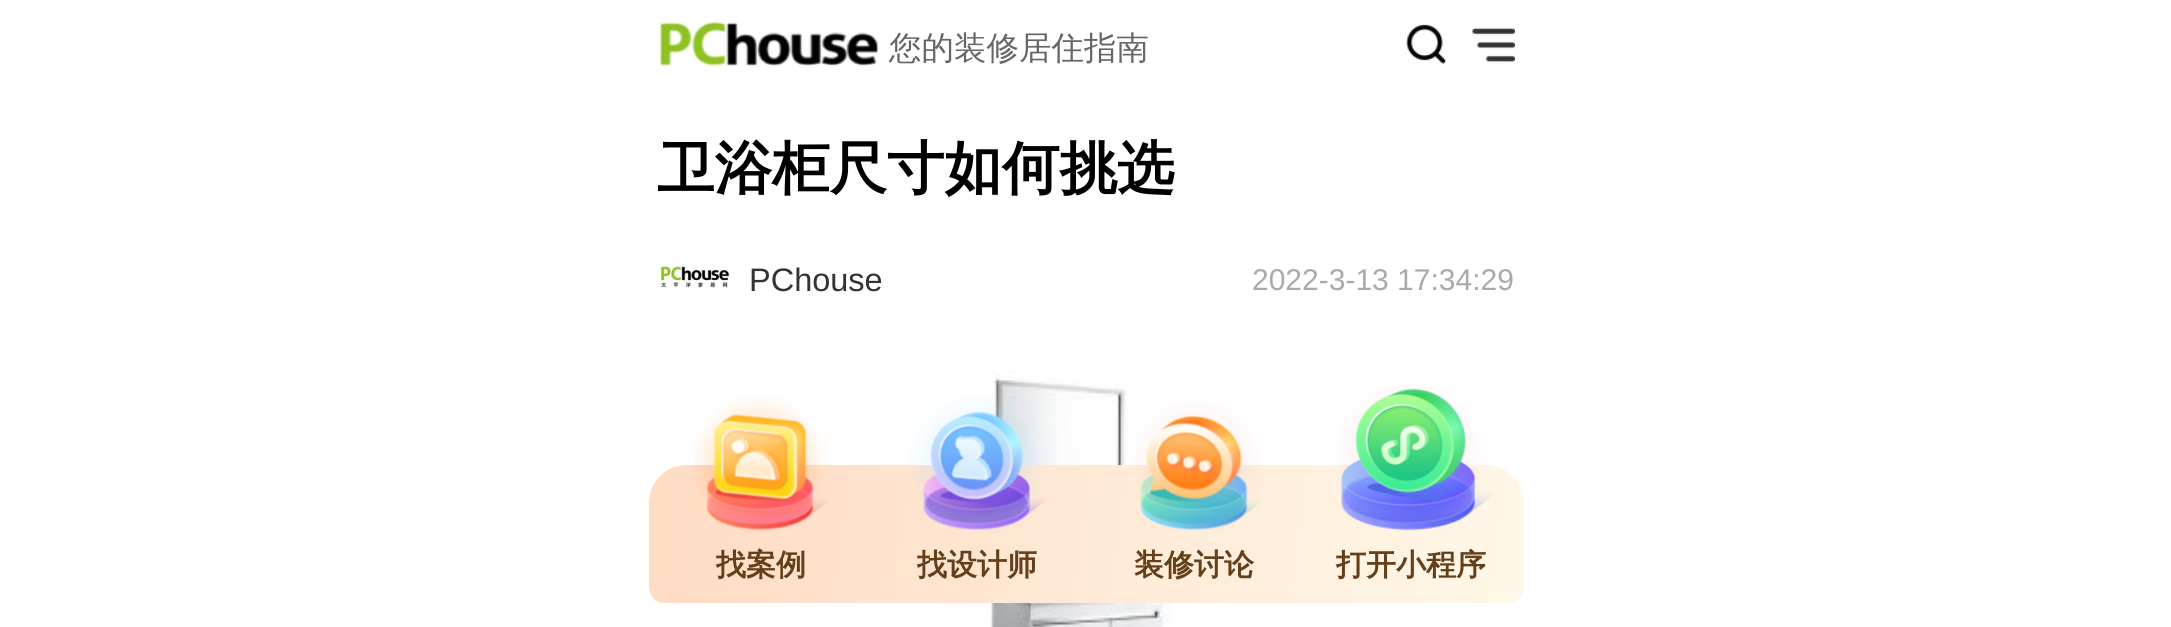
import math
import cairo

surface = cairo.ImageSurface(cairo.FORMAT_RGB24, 2171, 627)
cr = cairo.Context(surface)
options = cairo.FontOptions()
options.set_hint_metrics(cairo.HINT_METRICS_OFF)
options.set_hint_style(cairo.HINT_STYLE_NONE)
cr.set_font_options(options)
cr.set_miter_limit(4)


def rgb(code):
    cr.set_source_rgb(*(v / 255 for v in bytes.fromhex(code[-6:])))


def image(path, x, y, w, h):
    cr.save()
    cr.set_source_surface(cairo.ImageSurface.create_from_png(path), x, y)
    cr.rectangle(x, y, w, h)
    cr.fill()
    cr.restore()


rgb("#ffffff")
cr.paint()
image("img/1.png", 659, 21, 219, 46)
image("img/2.png", 1406, 24, 41, 40)
image("img/3.png", 1472, 27, 43, 36)
image("img/4.png", 660, 266, 69, 22)
image("img/5.png", 984, 370, 188, 257)
gradient = cairo.LinearGradient(648, 472, 1525, 595)
gradient.add_color_stop_rgba(0, 1, 0.859, 0.765, 1)
gradient.add_color_stop_rgba(1, 1, 0.973, 0.91, 1)
cr.set_source(gradient)
cr.new_path()
cr.move_to(687, 465)
cr.line_to(1486, 465)
cr.curve_to(1507, 465, 1524, 482, 1524, 503)
cr.line_to(1524, 587)
cr.curve_to(1524, 596, 1517, 603, 1508, 603)
cr.line_to(665, 603)
cr.curve_to(656, 603, 649, 596, 649, 587)
cr.line_to(649, 503)
cr.curve_to(649, 482, 666, 465, 687, 465)
cr.close_path()
cr.fill()
image("img/6.png", 693, 397, 136, 134)
image("img/7.png", 909, 396, 138, 137)
image("img/8.png", 1136, 402, 127, 129)
image("img/9.png", 1338, 383, 158, 148)
image("img/10.png", 1355, 388, 112, 105)
cr.select_font_face("WenQuanYi Zen Hei Medium")
cr.set_font_size(32.5)
rgb("#666666")
cr.move_to(889, 59)
cr.show_text("您的装修居住指南")
cr.select_font_face("WenQuanYi Zen Hei", cairo.FONT_SLANT_NORMAL, cairo.FONT_WEIGHT_BOLD)
cr.set_font_size(57.5)
rgb("#000000")
cr.move_to(657, 188)
cr.show_text("卫浴柜尺寸如何挑选")
cr.select_font_face("Liberation Sans")
cr.set_font_size(32.5)
rgb("#333333")
cr.move_to(749, 291)
cr.show_text("PChouse")
cr.set_font_size(30)
rgb("#aaaaaa")
cr.move_to(1252, 290)
cr.show_text("2022-3-13 17:34:29")
cr.select_font_face("WenQuanYi Zen Hei", cairo.FONT_SLANT_NORMAL, cairo.FONT_WEIGHT_BOLD)
rgb("#643f1a")
for x, y, s in [
    (716, 575, "找案例"),
    (917, 575, "找设计师"),
    (1134, 575, "装修讨论"),
    (1336, 575, "打开小程序"),
]:
    cr.move_to(x, y)
    cr.show_text(s)
surface.write_to_png("page.png")
